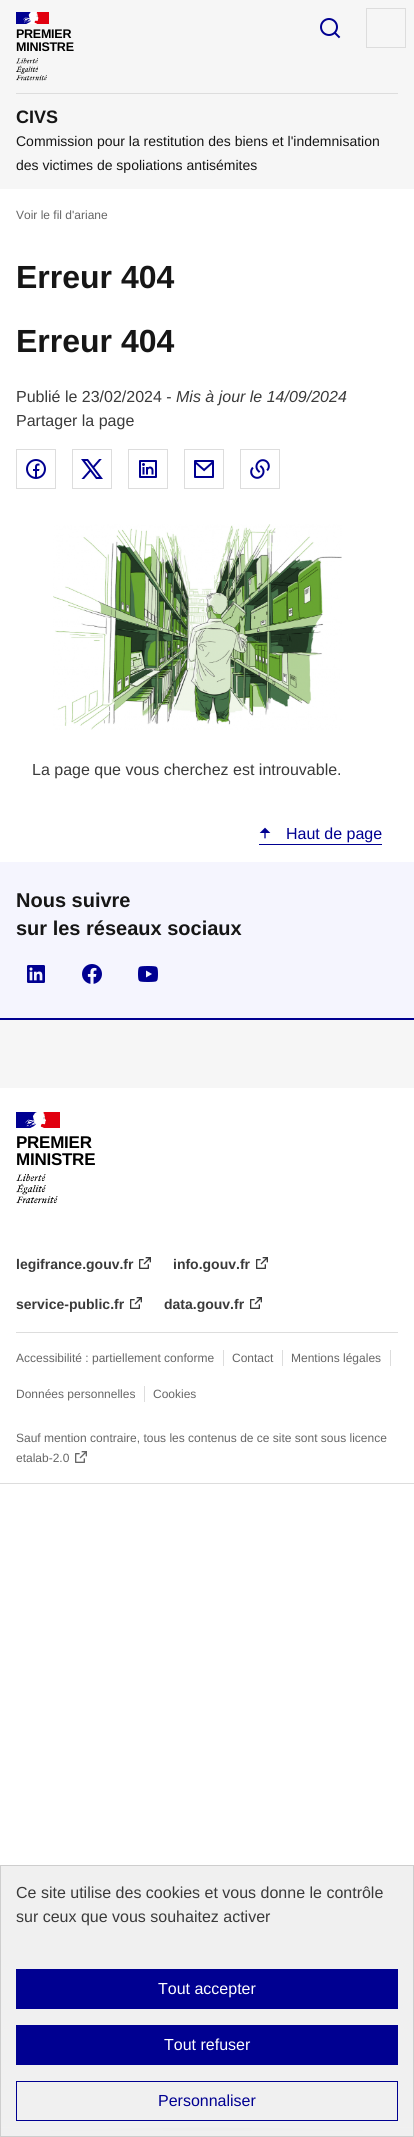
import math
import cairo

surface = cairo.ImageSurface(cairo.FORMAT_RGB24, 414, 2137)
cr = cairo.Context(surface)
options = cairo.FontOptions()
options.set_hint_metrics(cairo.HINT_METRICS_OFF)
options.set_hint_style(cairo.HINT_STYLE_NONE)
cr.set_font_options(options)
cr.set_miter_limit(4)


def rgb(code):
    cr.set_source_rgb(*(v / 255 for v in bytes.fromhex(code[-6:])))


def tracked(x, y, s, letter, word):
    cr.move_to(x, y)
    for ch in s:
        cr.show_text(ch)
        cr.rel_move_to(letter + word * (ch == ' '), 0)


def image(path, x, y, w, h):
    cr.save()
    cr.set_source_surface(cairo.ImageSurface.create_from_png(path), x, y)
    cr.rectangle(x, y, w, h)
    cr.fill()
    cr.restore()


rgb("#ffffff")
cr.paint()
for x, y, w, h, color in [
    (0, 0, 414, 189, "#f6f6f6"),
    (16, 12, 16, 12, "#000091"),
    (34, 12, 15, 12, "#e1000f"),
]:
    rgb(color)
    cr.rectangle(x, y, w, h)
    cr.fill()
image("img/1.png", 23, 12, 16, 12)
image("img/2.png", 16, 58, 31, 23)
image("img/3.png", 320, 18, 21, 21)
cr.rectangle(366.5, 8.5, 39, 39)
rgb("#dddddd")
cr.set_line_width(1)
cr.stroke()
cr.rectangle(16, 93, 382, 1)
cr.fill()
cr.rectangle(16.5, 449.5, 39, 39)
cr.stroke()
image("img/4.png", 26, 459, 20, 20)
cr.rectangle(72.5, 449.5, 39, 39)
cr.stroke()
image("img/5.png", 81, 459, 22, 20)
cr.rectangle(128.5, 449.5, 39, 39)
cr.stroke()
image("img/6.png", 139, 460, 18, 18)
cr.rectangle(184.5, 449.5, 39, 39)
cr.stroke()
image("img/7.png", 194, 460, 20, 18)
cr.rectangle(240.5, 449.5, 39, 39)
cr.stroke()
image("img/8.png", 250, 459, 20, 20)
image("img/9.png", 53, 524, 289, 206)
rgb("#000091")
cr.rectangle(259, 844, 123, 1)
cr.fill()
image("img/10.png", 259, 827, 12, 12)
rgb("#f5f5fe")
cr.rectangle(0, 862, 414, 156)
cr.fill()
image("img/11.png", 27, 965, 18, 18)
image("img/12.png", 82, 964, 20, 20)
image("img/13.png", 138, 966, 20, 16)
for x, y, w, h, color in [
    (0, 1483, 414, 1, "#dddddd"),
    (0, 1018, 414, 2, "#000091"),
    (0, 1020, 414, 68, "#f6f6f6"),
    (16, 1112, 22, 16, "#000091"),
    (40, 1112, 20, 16, "#e1000f"),
]:
    rgb(color)
    cr.rectangle(x, y, w, h)
    cr.fill()
image("img/14.png", 25, 1112, 21, 16)
image("img/15.png", 16, 1174, 42, 30)
image("img/16.png", 139, 1257, 12, 12)
image("img/16.png", 256, 1257, 12, 12)
image("img/16.png", 130, 1297, 12, 12)
image("img/16.png", 250, 1297, 12, 12)
for x, y, w, h, color in [
    (16, 1332, 382, 1, "#dddddd"),
    (223, 1350, 1, 16, "#dddddd"),
    (282, 1350, 1, 16, "#dddddd"),
    (390, 1350, 1, 16, "#dddddd"),
    (144, 1386, 1, 16, "#dddddd"),
]:
    rgb(color)
    cr.rectangle(x, y, w, h)
    cr.fill()
image("img/17.png", 75, 1451, 12, 12)
rgb("#f0f0f0")
cr.rectangle(1, 1871, 412, 256)
cr.fill()
gradient = cairo.RadialGradient(0, 0, 0, 0, 0, 1)
gradient.set_matrix(cairo.Matrix(1 / 207, 0, 0, 1 / 10, -1 * 207 / 207, -1 * 2137 / 10))
gradient.add_color_stop_rgba(0, 0.537, 0.537, 0.537, 1)
gradient.add_color_stop_rgba(1, 0.941, 0.941, 0.941, 1)
cr.set_source(gradient)
cr.rectangle(1, 2127, 412, 4)
cr.fill()
gradient = cairo.LinearGradient(207, 2119, 207, 2137)
gradient.add_color_stop_rgba(0, 0.941, 0.941, 0.941, 0)
gradient.add_color_stop_rgba(0.66, 0.941, 0.941, 0.941, 1)
cr.set_source(gradient)
cr.rectangle(1, 2127, 412, 9)
cr.fill()
gradient = cairo.LinearGradient(207, 1865, 207, 1883)
gradient.add_color_stop_rgba(0.33, 0.941, 0.941, 0.941, 1)
gradient.add_color_stop_rgba(1, 0.941, 0.941, 0.941, 0)
cr.set_source(gradient)
cr.rectangle(1, 1866, 412, 5)
cr.fill()
cr.rectangle(0.5, 1865.5, 413, 271)
rgb("#cecece")
cr.stroke()
rgb("#000091")
cr.rectangle(16, 1969, 382, 40)
cr.fill()
cr.rectangle(16, 2025, 382, 40)
cr.fill()
cr.rectangle(16.5, 2081.5, 381, 39)
cr.stroke()
cr.select_font_face("Liberation Sans", cairo.FONT_SLANT_NORMAL, cairo.FONT_WEIGHT_BOLD)
cr.set_font_size(12.5)
rgb("#000000")
tracked(16, 38, "PREMIER", -0.25, 0)
tracked(16, 51, "MINISTRE", -0.25, 0)
cr.set_font_size(18)
rgb("#161616")
cr.move_to(16, 123)
cr.show_text("CIVS")
cr.select_font_face("Liberation Sans")
cr.set_font_size(14)
cr.move_to(16, 146)
cr.show_text("Commission pour la restitution des biens et l'indemnisation")
cr.move_to(16, 170)
cr.show_text("des victimes de spoliations antisémites")
cr.set_font_size(12)
rgb("#666666")
cr.move_to(16, 219)
cr.show_text("Voir le fil d'ariane")
cr.select_font_face("Liberation Sans", cairo.FONT_SLANT_NORMAL, cairo.FONT_WEIGHT_BOLD)
cr.set_font_size(32)
rgb("#161616")
cr.move_to(16, 288)
cr.show_text("Erreur 404")
cr.move_to(16, 352)
cr.show_text("Erreur 404")
cr.select_font_face("Liberation Sans")
cr.set_font_size(16)
rgb("#3a3a3a")
cr.move_to(16, 402)
cr.show_text("Publié le 23/02/2024 -")
cr.select_font_face("Liberation Sans", cairo.FONT_SLANT_ITALIC)
cr.move_to(176, 402)
cr.show_text("Mis à jour le 14/09/2024")
cr.select_font_face("Liberation Sans")
cr.move_to(16, 426)
cr.show_text("Partager la page")
cr.move_to(32, 775)
cr.show_text("La page que vous cherchez est introuvable.")
rgb("#000091")
cr.move_to(286, 839)
cr.show_text("Haut de page")
cr.select_font_face("Liberation Sans", cairo.FONT_SLANT_NORMAL, cairo.FONT_WEIGHT_BOLD)
cr.set_font_size(20)
rgb("#161616")
cr.move_to(16, 907)
cr.show_text("Nous suivre")
cr.move_to(16, 935)
cr.show_text("sur les réseaux sociaux")
cr.set_font_size(17)
rgb("#000000")
tracked(16, 1148, "PREMIER", -0.25, 0)
tracked(16, 1165, "MINISTRE", -0.25, 0)
cr.set_font_size(14)
rgb("#3a3a3a")
for x, y, s in [
    (16, 1269, "legifrance.gouv.fr"),
    (173, 1269, "info.gouv.fr"),
    (16, 1309, "service-public.fr"),
    (164, 1309, "data.gouv.fr"),
]:
    cr.move_to(x, y)
    cr.show_text(s)
cr.select_font_face("Liberation Sans")
cr.set_font_size(12)
rgb("#666666")
for x, y, s in [
    (16, 1362, "Accessibilité : partiellement conforme"),
    (232, 1362, "Contact"),
    (291, 1362, "Mentions légales"),
    (16, 1398, "Données personnelles"),
    (153, 1398, "Cookies"),
    (16, 1442, "Sauf mention contraire, tous les contenus de ce site sont sous licence"),
    (16, 1462, "etalab-2.0"),
]:
    cr.move_to(x, y)
    cr.show_text(s)
cr.set_font_size(16)
rgb("#3a3a3a")
cr.move_to(16, 1898)
cr.show_text("Ce site utilise des cookies et vous donne le contrôle")
cr.move_to(16, 1922)
cr.show_text("sur ceux que vous souhaitez activer")
rgb("#ffffff")
cr.move_to(158, 1994)
cr.show_text("Tout accepter")
cr.move_to(164, 2050)
cr.show_text("Tout refuser")
rgb("#000091")
cr.move_to(158, 2106)
cr.show_text("Personnaliser")
surface.write_to_png("page.png")
